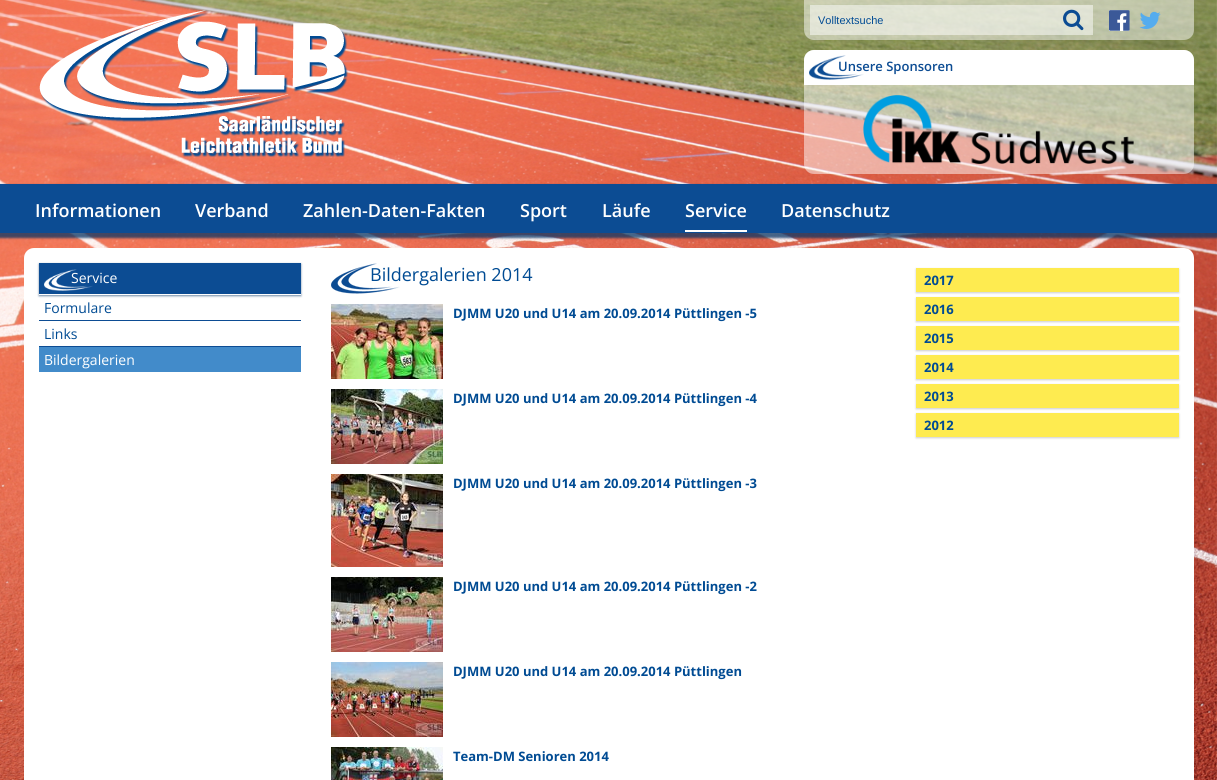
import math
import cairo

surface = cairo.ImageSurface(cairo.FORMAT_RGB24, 1217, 780)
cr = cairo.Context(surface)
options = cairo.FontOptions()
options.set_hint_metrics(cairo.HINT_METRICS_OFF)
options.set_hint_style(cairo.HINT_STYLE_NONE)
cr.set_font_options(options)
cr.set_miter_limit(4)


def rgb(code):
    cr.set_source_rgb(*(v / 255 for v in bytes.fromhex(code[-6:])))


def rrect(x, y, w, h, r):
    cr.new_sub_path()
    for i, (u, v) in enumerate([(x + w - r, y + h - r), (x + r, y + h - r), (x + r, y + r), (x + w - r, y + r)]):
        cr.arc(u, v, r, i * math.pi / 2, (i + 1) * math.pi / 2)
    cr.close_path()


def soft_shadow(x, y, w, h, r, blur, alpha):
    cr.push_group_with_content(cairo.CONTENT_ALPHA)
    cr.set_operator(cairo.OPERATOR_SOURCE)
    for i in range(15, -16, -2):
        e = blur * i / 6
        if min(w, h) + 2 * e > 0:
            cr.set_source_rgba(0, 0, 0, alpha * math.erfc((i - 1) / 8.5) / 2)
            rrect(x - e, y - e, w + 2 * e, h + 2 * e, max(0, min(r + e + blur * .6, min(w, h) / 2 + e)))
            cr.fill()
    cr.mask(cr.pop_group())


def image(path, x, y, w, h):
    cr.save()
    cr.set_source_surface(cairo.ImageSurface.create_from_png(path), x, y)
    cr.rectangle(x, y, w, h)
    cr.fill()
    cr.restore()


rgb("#ffffff")
cr.paint()
image("img/1.png", 0, 0, 1217, 780)
image("img/2.png", 39, 10, 309, 147)
cr.set_source_rgba(1, 1, 1, 0.5)
cr.new_path()
cr.move_to(804, 0)
cr.line_to(1194, 0)
cr.line_to(1194, 30)
cr.curve_to(1194, 35.5, 1189.5, 40, 1184, 40)
cr.line_to(814, 40)
cr.curve_to(808.5, 40, 804, 35.5, 804, 30)
cr.close_path()
cr.fill()
cr.rectangle(810, 5, 283, 30)
cr.fill()
image("img/3.png", 1063, 9, 21, 22)
rgb("#ffffff")
cr.rectangle(1109, 10, 20, 21)
cr.fill()
image("img/4.png", 1109, 10, 21, 21)
image("img/5.png", 1139, 11, 22, 18)
cr.set_source_rgba(1, 1, 1, 0.5)
rrect(804, 50, 390, 124, 10)
cr.fill()
rgb("#ffffff")
cr.new_path()
cr.move_to(814, 50)
cr.line_to(1184, 50)
cr.curve_to(1189.5, 50, 1194, 54.5, 1194, 60)
cr.line_to(1194, 85)
cr.line_to(804, 85)
cr.line_to(804, 60)
cr.curve_to(804, 54.5, 808.5, 50, 814, 50)
cr.close_path()
cr.fill()
image("img/6.png", 809, 55, 55, 25)
image("img/7.png", 863, 95, 271, 69)
rgb("#083566")
soft_shadow(-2, 185, 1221, 53, 0, 1, 0.75)
rgb("#0c4c93")
cr.rectangle(0, 184, 1217, 49)
cr.fill()
rgb("#ffffff")
cr.rectangle(685, 230, 62, 2)
cr.fill()
rrect(24, 248, 1170, 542, 10)
cr.fill()
rgb("#083566")
soft_shadow(39, 264, 262, 32, 0, 1, 0.59)
rgb("#0c4c93")
cr.rectangle(39, 263, 262, 31)
cr.fill()
image("img/8.png", 44, 269, 49, 22)
for x, y, w, h, color in [
    (39, 294, 262, 1, "#ffffff"),
    (39, 320, 262, 1, "#0c4c93"),
    (39, 346, 262, 1, "#0c4c93"),
    (39, 347, 262, 25, "#428bca"),
]:
    rgb(color)
    cr.rectangle(x, y, w, h)
    cr.fill()
image("img/9.png", 331, 263, 69, 31)
image("img/10.png", 331, 304, 112, 75)
image("img/11.png", 331, 389, 112, 75)
image("img/12.png", 331, 474, 112, 93)
image("img/13.png", 331, 577, 112, 75)
image("img/14.png", 331, 662, 112, 75)
image("img/15.png", 331, 747, 112, 33)
rgb("#cecece")
soft_shadow(916, 269, 263, 24, 0, 1, 1)
rgb("#feeb50")
cr.rectangle(916, 268, 263, 24)
cr.fill()
rgb("#cecece")
soft_shadow(916, 298, 263, 24, 0, 1, 1)
rgb("#feeb50")
cr.rectangle(916, 297, 263, 24)
cr.fill()
rgb("#cecece")
soft_shadow(916, 327, 263, 24, 0, 1, 1)
rgb("#feeb50")
cr.rectangle(916, 326, 263, 24)
cr.fill()
rgb("#cecece")
soft_shadow(916, 356, 263, 24, 0, 1, 1)
rgb("#feeb50")
cr.rectangle(916, 355, 263, 24)
cr.fill()
rgb("#cecece")
soft_shadow(916, 385, 263, 24, 0, 1, 1)
rgb("#feeb50")
cr.rectangle(916, 384, 263, 24)
cr.fill()
rgb("#cecece")
soft_shadow(916, 414, 263, 24, 0, 1, 1)
rgb("#feeb50")
cr.rectangle(916, 413, 263, 24)
cr.fill()
cr.select_font_face("Liberation Sans")
cr.set_font_size(11)
rgb("#004b93")
cr.move_to(818, 24)
cr.show_text("Volltextsuche")
cr.select_font_face("Open Sans SemiBold")
cr.set_font_size(13)
rgb("#0c4c93")
cr.move_to(838, 71)
cr.show_text("Unsere Sponsoren")
cr.set_font_size(18)
rgb("#ffffff")
for x, y, s in [
    (35, 217, "Informationen"),
    (195, 217, "Verband"),
    (303, 217, "Zahlen-Daten-Fakten"),
    (520, 217, "Sport"),
    (602, 217, "Läufe"),
    (685, 217, "Service"),
    (781, 217, "Datenschutz"),
]:
    cr.move_to(x, y)
    cr.show_text(s)
cr.select_font_face("Open Sans")
cr.set_font_size(14)
cr.move_to(71, 283)
cr.show_text("Service")
rgb("#004b93")
cr.move_to(44, 313)
cr.show_text("Formulare")
cr.move_to(44, 339)
cr.show_text("Links")
rgb("#ffffff")
cr.move_to(44, 365)
cr.show_text("Bildergalerien")
cr.set_font_size(18)
rgb("#004b93")
cr.move_to(370, 281)
cr.show_text("Bildergalerien 2014")
cr.select_font_face("Open Sans", cairo.FONT_SLANT_NORMAL, cairo.FONT_WEIGHT_BOLD)
cr.set_font_size(13)
for x, y, s in [
    (453, 318, "DJMM U20 und U14 am 20.09.2014 Püttlingen -5"),
    (453, 403, "DJMM U20 und U14 am 20.09.2014 Püttlingen -4"),
    (453, 488, "DJMM U20 und U14 am 20.09.2014 Püttlingen -3"),
    (453, 591, "DJMM U20 und U14 am 20.09.2014 Püttlingen -2"),
    (453, 676, "DJMM U20 und U14 am 20.09.2014 Püttlingen"),
    (453, 761, "Team-DM Senioren 2014"),
    (924, 285, "2017"),
    (924, 314, "2016"),
    (924, 343, "2015"),
    (924, 372, "2014"),
    (924, 401, "2013"),
    (924, 430, "2012"),
]:
    cr.move_to(x, y)
    cr.show_text(s)
surface.write_to_png("page.png")
